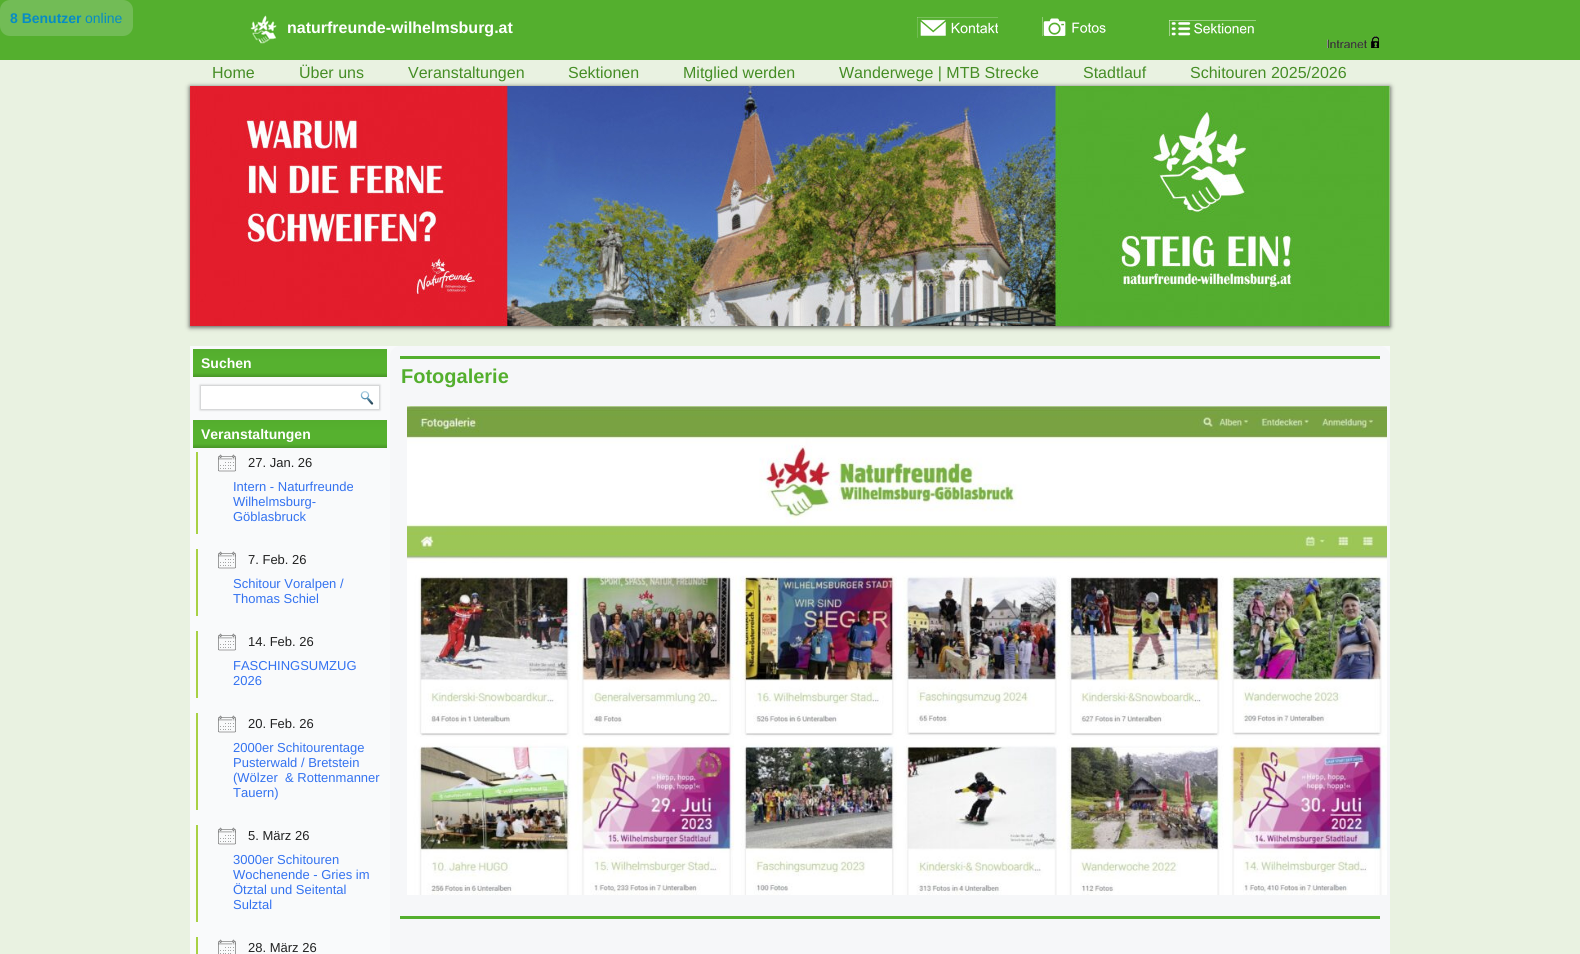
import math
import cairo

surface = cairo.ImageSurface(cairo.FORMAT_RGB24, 1580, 954)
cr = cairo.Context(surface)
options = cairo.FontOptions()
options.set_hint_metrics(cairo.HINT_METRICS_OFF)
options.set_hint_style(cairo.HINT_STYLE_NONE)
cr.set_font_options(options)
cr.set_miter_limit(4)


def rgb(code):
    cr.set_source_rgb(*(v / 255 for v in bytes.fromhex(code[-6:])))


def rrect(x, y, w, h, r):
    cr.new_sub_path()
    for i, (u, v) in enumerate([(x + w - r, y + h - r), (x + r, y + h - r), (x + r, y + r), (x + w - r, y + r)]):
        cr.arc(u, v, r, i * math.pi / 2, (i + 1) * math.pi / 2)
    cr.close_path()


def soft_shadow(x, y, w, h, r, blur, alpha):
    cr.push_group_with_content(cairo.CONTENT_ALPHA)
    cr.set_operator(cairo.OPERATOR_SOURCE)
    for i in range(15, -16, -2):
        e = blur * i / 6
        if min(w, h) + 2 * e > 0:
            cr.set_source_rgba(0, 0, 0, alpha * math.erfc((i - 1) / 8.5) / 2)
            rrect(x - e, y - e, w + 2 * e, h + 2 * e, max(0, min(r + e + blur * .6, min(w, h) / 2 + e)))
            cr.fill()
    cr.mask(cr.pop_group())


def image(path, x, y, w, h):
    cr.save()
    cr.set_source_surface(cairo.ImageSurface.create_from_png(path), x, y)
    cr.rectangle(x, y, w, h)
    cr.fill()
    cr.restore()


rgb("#e9f2e1")
cr.paint()
rgb("#54af2e")
cr.rectangle(0, 0, 1580, 60)
cr.fill()
rgb("#72bc56")
rrect(0, 0, 133, 36, 10)
cr.fill()
image("img/1.png", 250, 15, 27, 29)
image("img/2.png", 917, 17, 81, 21)
image("img/3.png", 1042, 17, 64, 19)
image("img/4.png", 1169, 20, 87, 16)
image("img/5.png", 1327, 36, 52, 12)
rgb("#4a4a4a")
soft_shadow(190, 87, 1200, 240, 0, 2.5, 1)
image("img/6.png", 190, 86, 1200, 240)
rgb("#f9fafb")
cr.rectangle(190, 346, 1200, 608)
cr.fill()
gradient = cairo.LinearGradient(290, 349, 290, 377)
gradient.add_color_stop_rgba(0, 0.329, 0.678, 0.18, 1)
gradient.add_color_stop_rgba(0.4, 0.337, 0.694, 0.184, 1)
gradient.add_color_stop_rgba(0.85, 0.337, 0.694, 0.184, 1)
gradient.add_color_stop_rgba(1, 0.282, 0.584, 0.157, 1)
cr.set_source(gradient)
cr.rectangle(193, 349, 194, 28)
cr.fill()
rgb("#000000")
soft_shadow(200, 385, 180, 25, 0, 1, 0.2)
rgb("#ffffff")
cr.rectangle(201, 386, 178, 23)
cr.fill()
image("img/7.png", 360, 391, 14, 14)
gradient = cairo.LinearGradient(290, 420, 290, 448)
gradient.add_color_stop_rgba(0, 0.329, 0.678, 0.18, 1)
gradient.add_color_stop_rgba(0.4, 0.337, 0.694, 0.184, 1)
gradient.add_color_stop_rgba(0.85, 0.337, 0.694, 0.184, 1)
gradient.add_color_stop_rgba(1, 0.282, 0.584, 0.157, 1)
cr.set_source(gradient)
cr.rectangle(193, 420, 194, 28)
cr.fill()
rgb("#a8d144")
cr.rectangle(196, 452, 2, 82)
cr.fill()
image("img/8.png", 218, 454, 18, 18)
cr.rectangle(196, 549, 2, 67)
cr.fill()
image("img/8.png", 218, 551, 18, 18)
cr.rectangle(196, 631, 2, 67)
cr.fill()
image("img/8.png", 218, 633, 18, 18)
cr.rectangle(196, 713, 2, 97)
cr.fill()
image("img/8.png", 218, 715, 18, 18)
cr.rectangle(196, 825, 2, 97)
cr.fill()
image("img/8.png", 218, 827, 18, 18)
cr.rectangle(196, 937, 2, 17)
cr.fill()
image("img/9.png", 218, 939, 18, 15)
rgb("#f6f7f9")
rrect(390, 346, 1000, 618, 10)
cr.fill()
rgb("#54af2e")
cr.rectangle(400, 356, 980, 3)
cr.fill()
image("img/10.png", 407, 406, 980, 489)
cr.rectangle(400, 916, 980, 3)
cr.fill()
cr.select_font_face("Liberation Sans", cairo.FONT_SLANT_NORMAL, cairo.FONT_WEIGHT_BOLD)
cr.set_font_size(14)
rgb("#078cc5")
cr.move_to(10, 23)
cr.show_text("8 Benutzer")
cr.select_font_face("Liberation Sans")
cr.move_to(85, 23)
cr.show_text("online")
cr.select_font_face("Liberation Sans", cairo.FONT_SLANT_NORMAL, cairo.FONT_WEIGHT_BOLD)
cr.set_font_size(16)
rgb("#ffffff")
cr.move_to(287, 33)
cr.show_text("naturfreunde-wilhelmsburg.at")
cr.select_font_face("Liberation Sans")
rgb("#458d25")
for x, y, s in [
    (212, 78, "Home"),
    (299, 78, "Über uns"),
    (408, 78, "Veranstaltungen"),
    (568, 78, "Sektionen"),
    (683, 78, "Mitglied werden"),
    (839, 78, "Wanderwege | MTB Strecke"),
    (1083, 78, "Stadtlauf"),
    (1190, 78, "Schitouren 2025/2026"),
]:
    cr.move_to(x, y)
    cr.show_text(s)
cr.select_font_face("Liberation Sans", cairo.FONT_SLANT_NORMAL, cairo.FONT_WEIGHT_BOLD)
cr.set_font_size(14)
rgb("#ffffff")
cr.move_to(201, 368)
cr.show_text("Suchen")
cr.move_to(201, 439)
cr.show_text("Veranstaltungen")
cr.select_font_face("Liberation Sans")
cr.set_font_size(13)
rgb("#212121")
cr.move_to(248, 467)
cr.show_text("27. Jan. 26")
rgb("#3372f0")
for x, y, s in [
    (233, 491, "Intern - Naturfreunde"),
    (233, 506, "Wilhelmsburg-"),
    (233, 521, "Göblasbruck"),
]:
    cr.move_to(x, y)
    cr.show_text(s)
rgb("#212121")
cr.move_to(248, 564)
cr.show_text("7. Feb. 26")
rgb("#3372f0")
cr.move_to(233, 588)
cr.show_text("Schitour Voralpen /")
cr.move_to(233, 603)
cr.show_text("Thomas Schiel")
rgb("#212121")
cr.move_to(248, 646)
cr.show_text("14. Feb. 26")
rgb("#3372f0")
cr.move_to(233, 670)
cr.show_text("FASCHINGSUMZUG")
cr.move_to(233, 685)
cr.show_text("2026")
rgb("#212121")
cr.move_to(248, 728)
cr.show_text("20. Feb. 26")
rgb("#3372f0")
for x, y, s in [
    (233, 752, "2000er Schitourentage"),
    (233, 767, "Pusterwald / Bretstein"),
    (233, 782, "(Wölzer  & Rottenmanner"),
    (233, 797, "Tauern)"),
]:
    cr.move_to(x, y)
    cr.show_text(s)
rgb("#212121")
cr.move_to(248, 840)
cr.show_text("5. März 26")
rgb("#3372f0")
for x, y, s in [
    (233, 864, "3000er Schitouren"),
    (233, 879, "Wochenende - Gries im"),
    (233, 894, "Ötztal und Seitental"),
    (233, 909, "Sulztal"),
]:
    cr.move_to(x, y)
    cr.show_text(s)
rgb("#212121")
cr.move_to(248, 952)
cr.show_text("28. März 26")
cr.select_font_face("Liberation Sans", cairo.FONT_SLANT_NORMAL, cairo.FONT_WEIGHT_BOLD)
cr.set_font_size(20)
rgb("#54af2e")
cr.move_to(401, 383)
cr.show_text("Fotogalerie")
surface.write_to_png("page.png")
